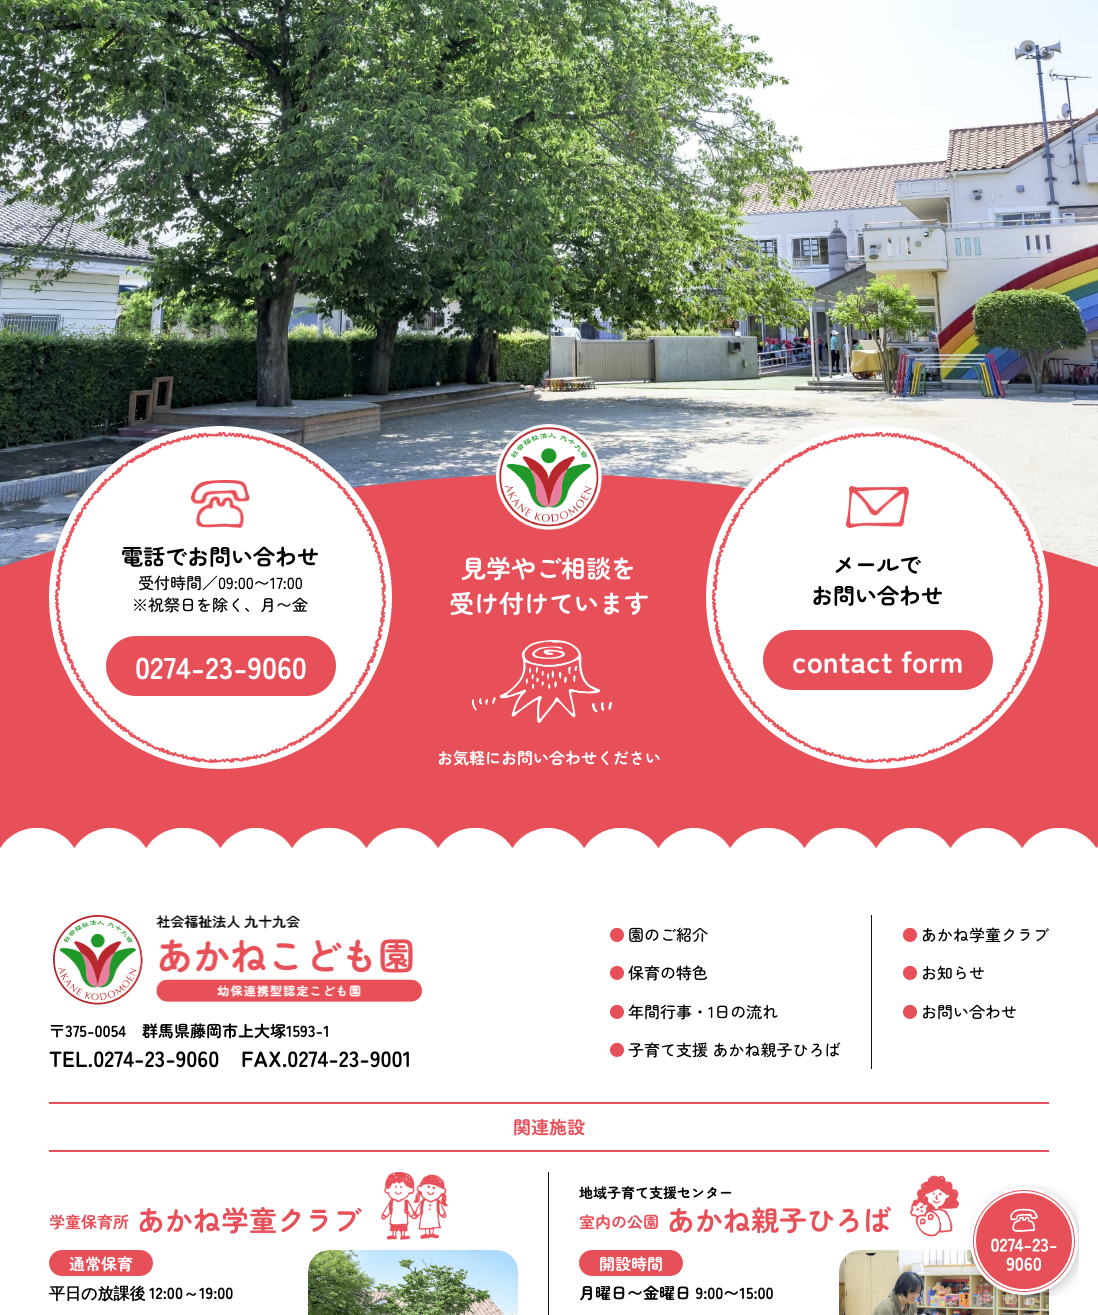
import math
import cairo

surface = cairo.ImageSurface(cairo.FORMAT_RGB24, 1098, 1315)
cr = cairo.Context(surface)
options = cairo.FontOptions()
options.set_hint_metrics(cairo.HINT_METRICS_OFF)
options.set_hint_style(cairo.HINT_STYLE_NONE)
cr.set_font_options(options)
cr.set_miter_limit(4)


def rgb(code):
    cr.set_source_rgb(*(v / 255 for v in bytes.fromhex(code[-6:])))


def rrect(x, y, w, h, r):
    cr.new_sub_path()
    for i, (u, v) in enumerate([(x + w - r, y + h - r), (x + r, y + h - r), (x + r, y + r), (x + w - r, y + r)]):
        cr.arc(u, v, r, i * math.pi / 2, (i + 1) * math.pi / 2)
    cr.close_path()


def image(path, x, y, w, h):
    cr.save()
    cr.set_source_surface(cairo.ImageSurface.create_from_png(path), x, y)
    cr.rectangle(x, y, w, h)
    cr.fill()
    cr.restore()


rgb("#ffffff")
cr.paint()
image("img/1.png", 0, 0, 1098, 568)
image("img/2.png", 0, 474, 1098, 374)
image("img/3.png", 49, 426, 343, 343)
image("img/4.png", 191, 480, 59, 48)
rgb("#e85059")
rrect(107.5, 637.5, 227, 57, 28.5)
cr.fill_preserve()
cr.set_line_width(3)
cr.stroke()
image("img/5.png", 496, 424, 106, 106)
image("img/6.png", 472, 640, 140, 83)
image("img/7.png", 706, 426, 343, 343)
image("img/8.png", 846, 486, 63, 42)
rrect(764.5, 631.5, 227, 57, 28.5)
cr.fill_preserve()
cr.stroke()
image("img/9.png", 0, 828, 1098, 46)
image("img/10.png", 53, 915, 369, 90)
for x, y, w, h, color in [
    (871, 915, 1, 154, "#111111"),
    (49, 1102, 1000, 2, "#e85059"),
    (49, 1150, 1000, 2, "#e85059"),
    (548, 1172, 1, 143, "#111111"),
]:
    rgb(color)
    cr.rectangle(x, y, w, h)
    cr.fill()
image("img/11.png", 381, 1172, 67, 68)
rgb("#e85059")
rrect(49, 1250, 104, 26, 13)
cr.fill()
image("img/12.png", 308, 1250, 210, 65)
image("img/13.png", 910, 1175, 49, 62)
rrect(579, 1250, 104, 26, 13)
cr.fill()
image("img/14.png", 839, 1250, 210, 65)
image("img/15.png", 969, 1186, 110, 110)
cr.select_font_face("Zen Maru Gothic", cairo.FONT_SLANT_NORMAL, cairo.FONT_WEIGHT_BOLD)
cr.set_font_size(22)
rgb("#000000")
cr.move_to(121, 565)
cr.show_text("電話でお問い合わせ")
cr.select_font_face("Zen Maru Gothic Medium")
cr.set_font_size(16)
cr.move_to(138, 589)
cr.show_text("受付時間／09:00〜17:00")
cr.move_to(132, 611)
cr.show_text("※祝祭日を除く、月〜金")
cr.select_font_face("Zen Maru Gothic", cairo.FONT_SLANT_NORMAL, cairo.FONT_WEIGHT_BOLD)
cr.set_font_size(30)
rgb("#ffffff")
cr.move_to(135, 679)
cr.show_text("0274-23-9060")
cr.set_font_size(25)
cr.move_to(461, 578)
cr.show_text("見学やご相談を")
cr.move_to(449, 613)
cr.show_text("受け付けています")
cr.set_font_size(16)
cr.move_to(437, 764)
cr.show_text("お気軽にお問い合わせください")
cr.set_font_size(22)
rgb("#000000")
cr.move_to(833, 573)
cr.show_text("メールで")
cr.move_to(811, 604)
cr.show_text("お問い合わせ")
cr.set_font_size(30)
rgb("#ffffff")
cr.move_to(792, 673)
cr.show_text("contact form")
cr.set_font_size(16)
rgb("#000000")
cr.move_to(49, 1037)
cr.show_text("〒375-0054　群馬県藤岡市上大塚1593-1")
cr.set_font_size(22)
cr.move_to(49, 1067)
cr.show_text("TEL.0274-23-9060")
cr.move_to(241, 1067)
cr.show_text("FAX.0274-23-9001")
cr.select_font_face("Zen Maru Gothic Medium")
cr.set_font_size(16)
rgb("#e85059")
cr.move_to(609, 941)
cr.show_text("●")
rgb("#000000")
cr.move_to(628, 941)
cr.show_text("園のご紹介")
rgb("#e85059")
cr.move_to(609, 979)
cr.show_text("●")
rgb("#000000")
cr.move_to(628, 979)
cr.show_text("保育の特色")
rgb("#e85059")
cr.move_to(609, 1018)
cr.show_text("●")
rgb("#000000")
cr.move_to(628, 1018)
cr.show_text("年間行事・1日の流れ")
rgb("#e85059")
cr.move_to(609, 1056)
cr.show_text("●")
rgb("#000000")
cr.move_to(628, 1056)
cr.show_text("子育て支援 あかね親子ひろば")
rgb("#e85059")
cr.move_to(902, 941)
cr.show_text("●")
rgb("#000000")
cr.move_to(921, 941)
cr.show_text("あかね学童クラブ")
rgb("#e85059")
cr.move_to(902, 979)
cr.show_text("●")
rgb("#000000")
cr.move_to(921, 979)
cr.show_text("お知らせ")
rgb("#e85059")
cr.move_to(902, 1018)
cr.show_text("●")
rgb("#000000")
cr.move_to(921, 1018)
cr.show_text("お問い合わせ")
cr.select_font_face("Zen Maru Gothic", cairo.FONT_SLANT_NORMAL, cairo.FONT_WEIGHT_BOLD)
cr.set_font_size(18)
rgb("#e85059")
cr.move_to(513, 1134)
cr.show_text("関連施設")
cr.set_font_size(16)
cr.move_to(49, 1228)
cr.show_text("学童保育所")
cr.set_font_size(28)
cr.move_to(137, 1231)
cr.show_text("あかね学童クラブ")
cr.set_font_size(16)
rgb("#ffffff")
cr.move_to(69, 1270)
cr.show_text("通常保育")
cr.select_font_face("WenQuanYi Zen Hei", cairo.FONT_SLANT_NORMAL, cairo.FONT_WEIGHT_BOLD)
rgb("#000000")
cr.move_to(49, 1299)
cr.show_text("平日の放課後")
cr.select_font_face("Zen Maru Gothic", cairo.FONT_SLANT_NORMAL, cairo.FONT_WEIGHT_BOLD)
cr.move_to(149, 1299)
cr.show_text("12:00")
cr.select_font_face("WenQuanYi Zen Hei", cairo.FONT_SLANT_NORMAL, cairo.FONT_WEIGHT_BOLD)
cr.move_to(183, 1299)
cr.show_text("～")
cr.select_font_face("Zen Maru Gothic", cairo.FONT_SLANT_NORMAL, cairo.FONT_WEIGHT_BOLD)
cr.move_to(199, 1299)
cr.show_text("19:00")
cr.set_font_size(14)
cr.move_to(579, 1198)
cr.show_text("地域子育て支援センター")
cr.set_font_size(16)
rgb("#e85059")
cr.move_to(579, 1228)
cr.show_text("室内の公園")
cr.set_font_size(28)
cr.move_to(667, 1231)
cr.show_text("あかね親子ひろば")
cr.set_font_size(16)
rgb("#ffffff")
cr.move_to(599, 1270)
cr.show_text("開設時間")
rgb("#000000")
cr.move_to(579, 1299)
cr.show_text("月曜日〜金曜日 9:00〜15:00")
surface.write_to_png("page.png")
